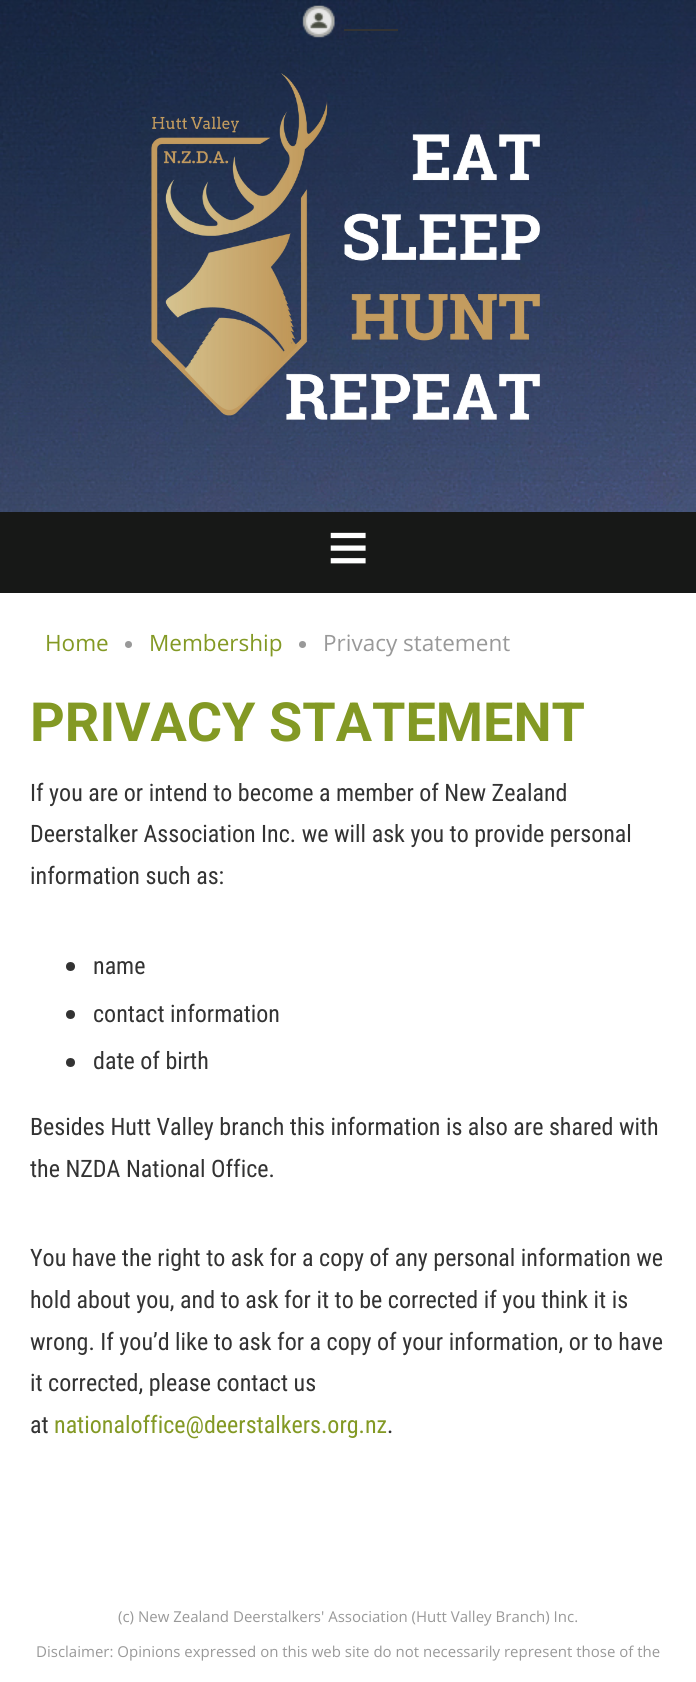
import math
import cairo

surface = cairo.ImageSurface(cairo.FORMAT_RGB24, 696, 1682)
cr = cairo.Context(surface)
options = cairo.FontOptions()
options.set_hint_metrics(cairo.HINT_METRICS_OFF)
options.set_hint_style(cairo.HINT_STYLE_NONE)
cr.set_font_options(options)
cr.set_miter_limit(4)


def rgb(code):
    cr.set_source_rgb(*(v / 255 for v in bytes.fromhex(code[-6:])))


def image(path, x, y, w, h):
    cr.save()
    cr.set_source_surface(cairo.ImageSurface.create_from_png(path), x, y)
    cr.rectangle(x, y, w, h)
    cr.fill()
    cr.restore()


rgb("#ffffff")
cr.paint()
image("img/1.png", 0, 0, 696, 512)
image("img/2.png", 302, 5, 33, 33)
rgb("#333333")
cr.rectangle(344, 29, 54, 2)
cr.fill()
image("img/3.png", 151, 73, 389, 347)
rgb("#171817")
cr.rectangle(0, 512, 696, 81)
cr.fill()
rgb("#999999")
cr.arc(128.5, 644.5, 3.5, 0, 2 * math.pi)
cr.fill()
cr.arc(302.5, 644.5, 3.5, 0, 2 * math.pi)
cr.fill()
rgb("#333333")
cr.arc(70.5, 966.5, 4.5, 0, 2 * math.pi)
cr.fill()
cr.arc(70.5, 1014.5, 4.5, 0, 2 * math.pi)
cr.fill()
cr.arc(70.5, 1062.5, 4.5, 0, 2 * math.pi)
cr.fill()
cr.select_font_face("Liberation Serif", cairo.FONT_SLANT_NORMAL, cairo.FONT_WEIGHT_BOLD)
cr.set_font_size(75)
rgb("#ffffff")
cr.move_to(327, 573)
cr.show_text("≡")
cr.select_font_face("Open Sans")
cr.set_font_size(22.5)
rgb("#839924")
cr.move_to(45, 651)
cr.show_text("Home")
cr.move_to(149, 651)
cr.show_text("Membership")
rgb("#999999")
cr.move_to(323, 651)
cr.show_text("Privacy statement")
cr.select_font_face("Roboto", cairo.FONT_SLANT_NORMAL, cairo.FONT_WEIGHT_BOLD)
cr.set_font_size(54)
rgb("#839924")
cr.move_to(30, 741)
cr.show_text("PRIVACY STATEMENT")
cr.select_font_face("Roboto Condensed")
cr.set_font_size(24)
rgb("#333333")
for x, y, s in [
    (30, 801, "If you are or intend to become a member of New Zealand"),
    (30, 842, "Deerstalker Association Inc. we will ask you to provide personal"),
    (30, 884, "information such as:"),
    (93, 974, "name"),
    (93, 1022, "contact information"),
    (93, 1069, "date of birth"),
    (30, 1135, "Besides Hutt Valley branch this information is also are shared with"),
    (30, 1177, "the NZDA National Office."),
    (30, 1266, "You have the right to ask for a copy of any personal information we"),
    (30, 1308, "hold about you, and to ask for it to be corrected if you think it is"),
    (30, 1350, "wrong. If you’d like to ask for a copy of your information, or to have"),
    (30, 1391, "it corrected, please contact us"),
    (30, 1433, "at"),
]:
    cr.move_to(x, y)
    cr.show_text(s)
rgb("#839924")
cr.move_to(54, 1433)
cr.show_text("nationaloffice@deerstalkers.org.nz")
rgb("#333333")
cr.move_to(387, 1433)
cr.show_text(".")
cr.select_font_face("Open Sans")
cr.set_font_size(15)
rgb("#999999")
cr.move_to(118, 1622)
cr.show_text("(c) New Zealand Deerstalkers' Association (Hutt Valley Branch) Inc.")
cr.move_to(36, 1657)
cr.show_text("Disclaimer: Opinions expressed on this web site do not necessarily represent those of the")
surface.write_to_png("page.png")
